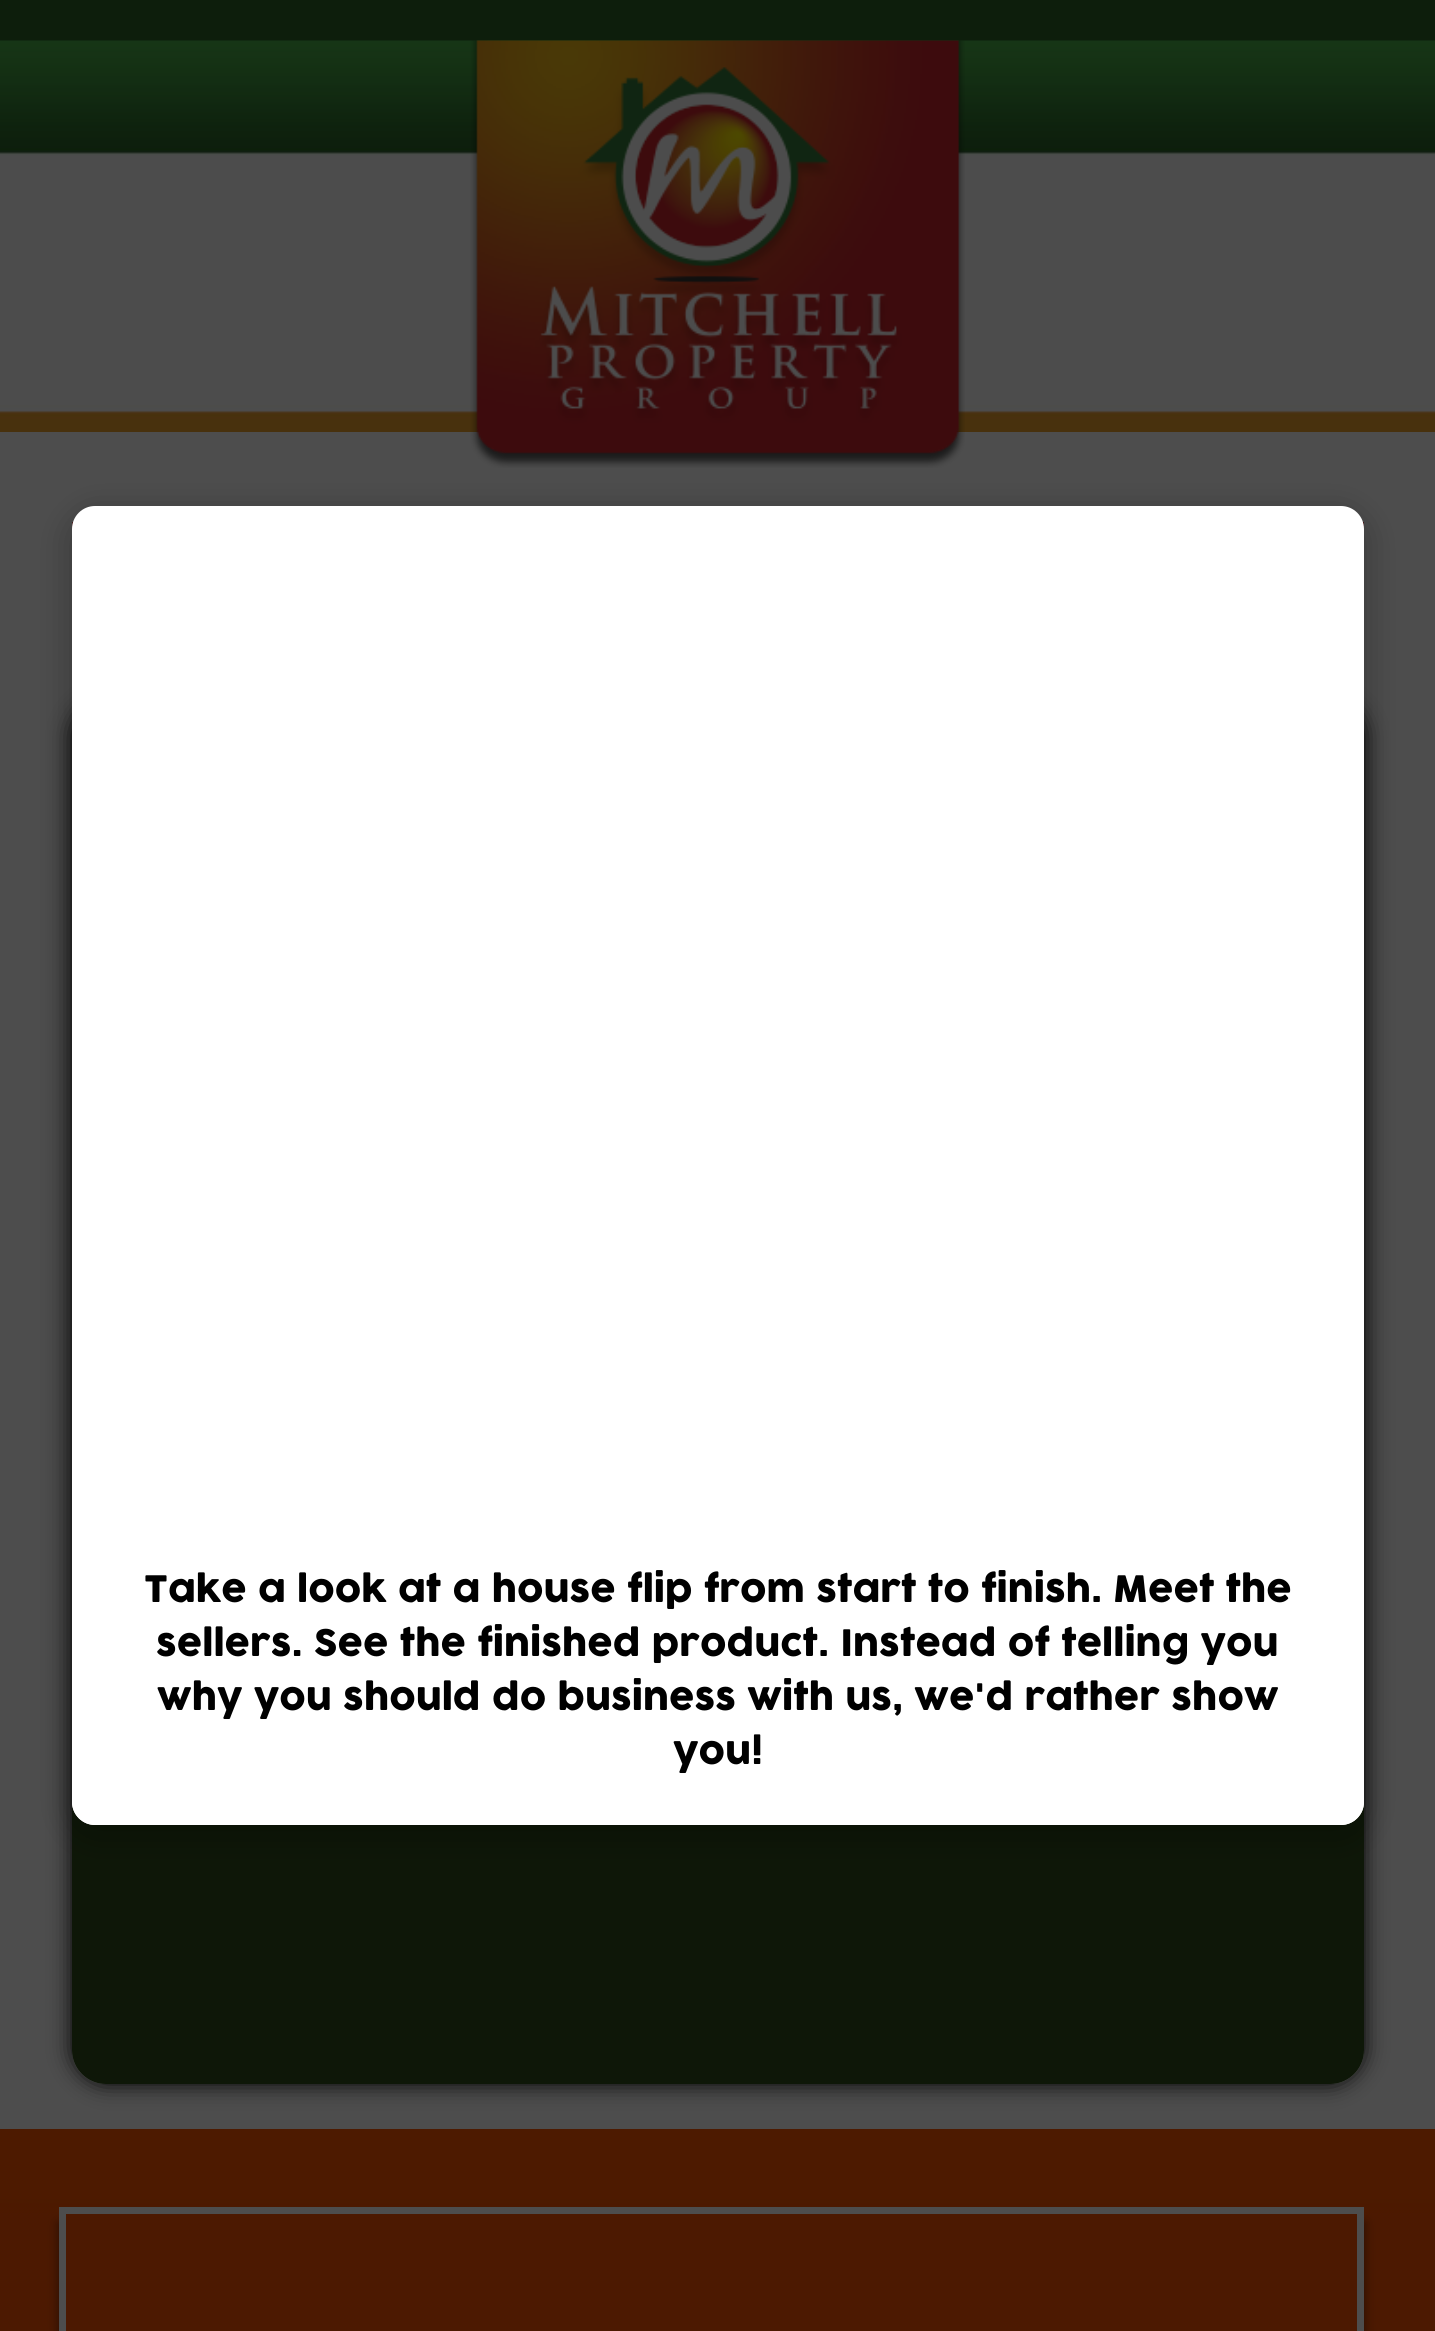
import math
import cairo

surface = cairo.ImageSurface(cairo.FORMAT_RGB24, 1435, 2331)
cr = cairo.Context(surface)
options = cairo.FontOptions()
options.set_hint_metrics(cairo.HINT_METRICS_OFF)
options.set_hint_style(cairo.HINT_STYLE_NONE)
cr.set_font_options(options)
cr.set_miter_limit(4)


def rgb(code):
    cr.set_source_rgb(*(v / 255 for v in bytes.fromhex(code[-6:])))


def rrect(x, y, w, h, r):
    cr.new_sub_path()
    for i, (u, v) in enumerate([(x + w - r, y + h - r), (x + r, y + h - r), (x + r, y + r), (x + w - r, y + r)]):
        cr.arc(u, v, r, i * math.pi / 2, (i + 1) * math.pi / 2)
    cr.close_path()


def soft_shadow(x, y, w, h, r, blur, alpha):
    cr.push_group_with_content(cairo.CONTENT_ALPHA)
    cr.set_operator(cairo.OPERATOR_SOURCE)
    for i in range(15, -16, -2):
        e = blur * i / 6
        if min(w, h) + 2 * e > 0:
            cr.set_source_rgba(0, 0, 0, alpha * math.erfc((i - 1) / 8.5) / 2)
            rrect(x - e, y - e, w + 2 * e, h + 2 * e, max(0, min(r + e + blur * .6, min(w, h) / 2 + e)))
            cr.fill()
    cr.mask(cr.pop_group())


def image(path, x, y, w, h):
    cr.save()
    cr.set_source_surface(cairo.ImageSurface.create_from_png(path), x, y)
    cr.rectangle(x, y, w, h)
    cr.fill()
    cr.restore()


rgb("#0d1e0c")
cr.paint()
image("img/1.png", 0, 40, 1435, 392)
rgb("#4d4d4d")
cr.rectangle(0, 432, 1435, 1697)
cr.fill()
image("img/2.png", 470, 40, 495, 428)
rgb("#3d0b0d")
cr.rectangle(72, 522, 1292, 7)
cr.fill()
cr.save()
cr.set_fill_rule(cairo.FILL_RULE_EVEN_ODD)
cr.new_path()
cr.move_to(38, 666)
cr.line_to(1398, 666)
cr.line_to(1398, 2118)
cr.line_to(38, 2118)
cr.close_path()
cr.move_to(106, 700)
cr.line_to(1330, 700)
cr.curve_to(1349, 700, 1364, 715, 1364, 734)
cr.line_to(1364, 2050)
cr.curve_to(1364, 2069, 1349, 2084, 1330, 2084)
cr.line_to(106, 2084)
cr.curve_to(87, 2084, 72, 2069, 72, 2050)
cr.line_to(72, 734)
cr.curve_to(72, 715, 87, 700, 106, 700)
cr.close_path()
cr.clip()
rgb("#000000")
soft_shadow(72, 700, 1292, 1384, 34, 11, 1)
cr.restore()
cr.set_source_rgba(0.027, 0.067, 0.004, 0.9)
rrect(72, 700, 1292, 1384, 34)
cr.fill()
rgb("#000000")
soft_shadow(72, 515, 1292, 1319, 23, 17, 0.3)
rgb("#ffffff")
rrect(72, 506, 1292, 1319, 23)
cr.fill()
cr.new_path()
cr.move_to(72, 1519)
cr.line_to(1364, 1519)
cr.line_to(1364, 1802)
cr.curve_to(1364, 1814.5, 1353.5, 1825, 1341, 1825)
cr.line_to(95, 1825)
cr.curve_to(82.5, 1825, 72, 1814.5, 72, 1802)
cr.close_path()
cr.fill()
gradient = cairo.LinearGradient(718, 2129, 718, 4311)
gradient.add_color_stop_rgba(0, 0.302, 0.102, 0, 1)
gradient.add_color_stop_rgba(1, 0.239, 0.043, 0.051, 1)
cr.set_source(gradient)
cr.rectangle(0, 2129, 1435, 202)
cr.fill()
cr.save()
cr.set_fill_rule(cairo.FILL_RULE_EVEN_ODD)
cr.new_path()
cr.move_to(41, 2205)
cr.line_to(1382, 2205)
cr.line_to(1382, 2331)
cr.line_to(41, 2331)
cr.close_path()
cr.move_to(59, 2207)
cr.line_to(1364, 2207)
cr.line_to(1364, 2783)
cr.line_to(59, 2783)
cr.close_path()
cr.clip()
rgb("#000000")
soft_shadow(59, 2223, 1305, 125, 0, 5.5, 0.5)
cr.restore()
cr.rectangle(62.5, 2210.5, 1298, 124)
rgb("#4d4d4d")
cr.set_line_width(7)
cr.stroke()
cr.select_font_face("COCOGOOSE")
cr.set_font_size(36)
rgb("#000000")
for x, y, s in [
    (144, 1602, "Take a look at a house flip from start to finish. Meet the"),
    (156, 1656, "sellers. See the finished product. Instead of telling you"),
    (157, 1710, "why you should do business with us, we'd rather show"),
    (673, 1764, "you!"),
]:
    cr.move_to(x, y)
    cr.show_text(s)
surface.write_to_png("page.png")
